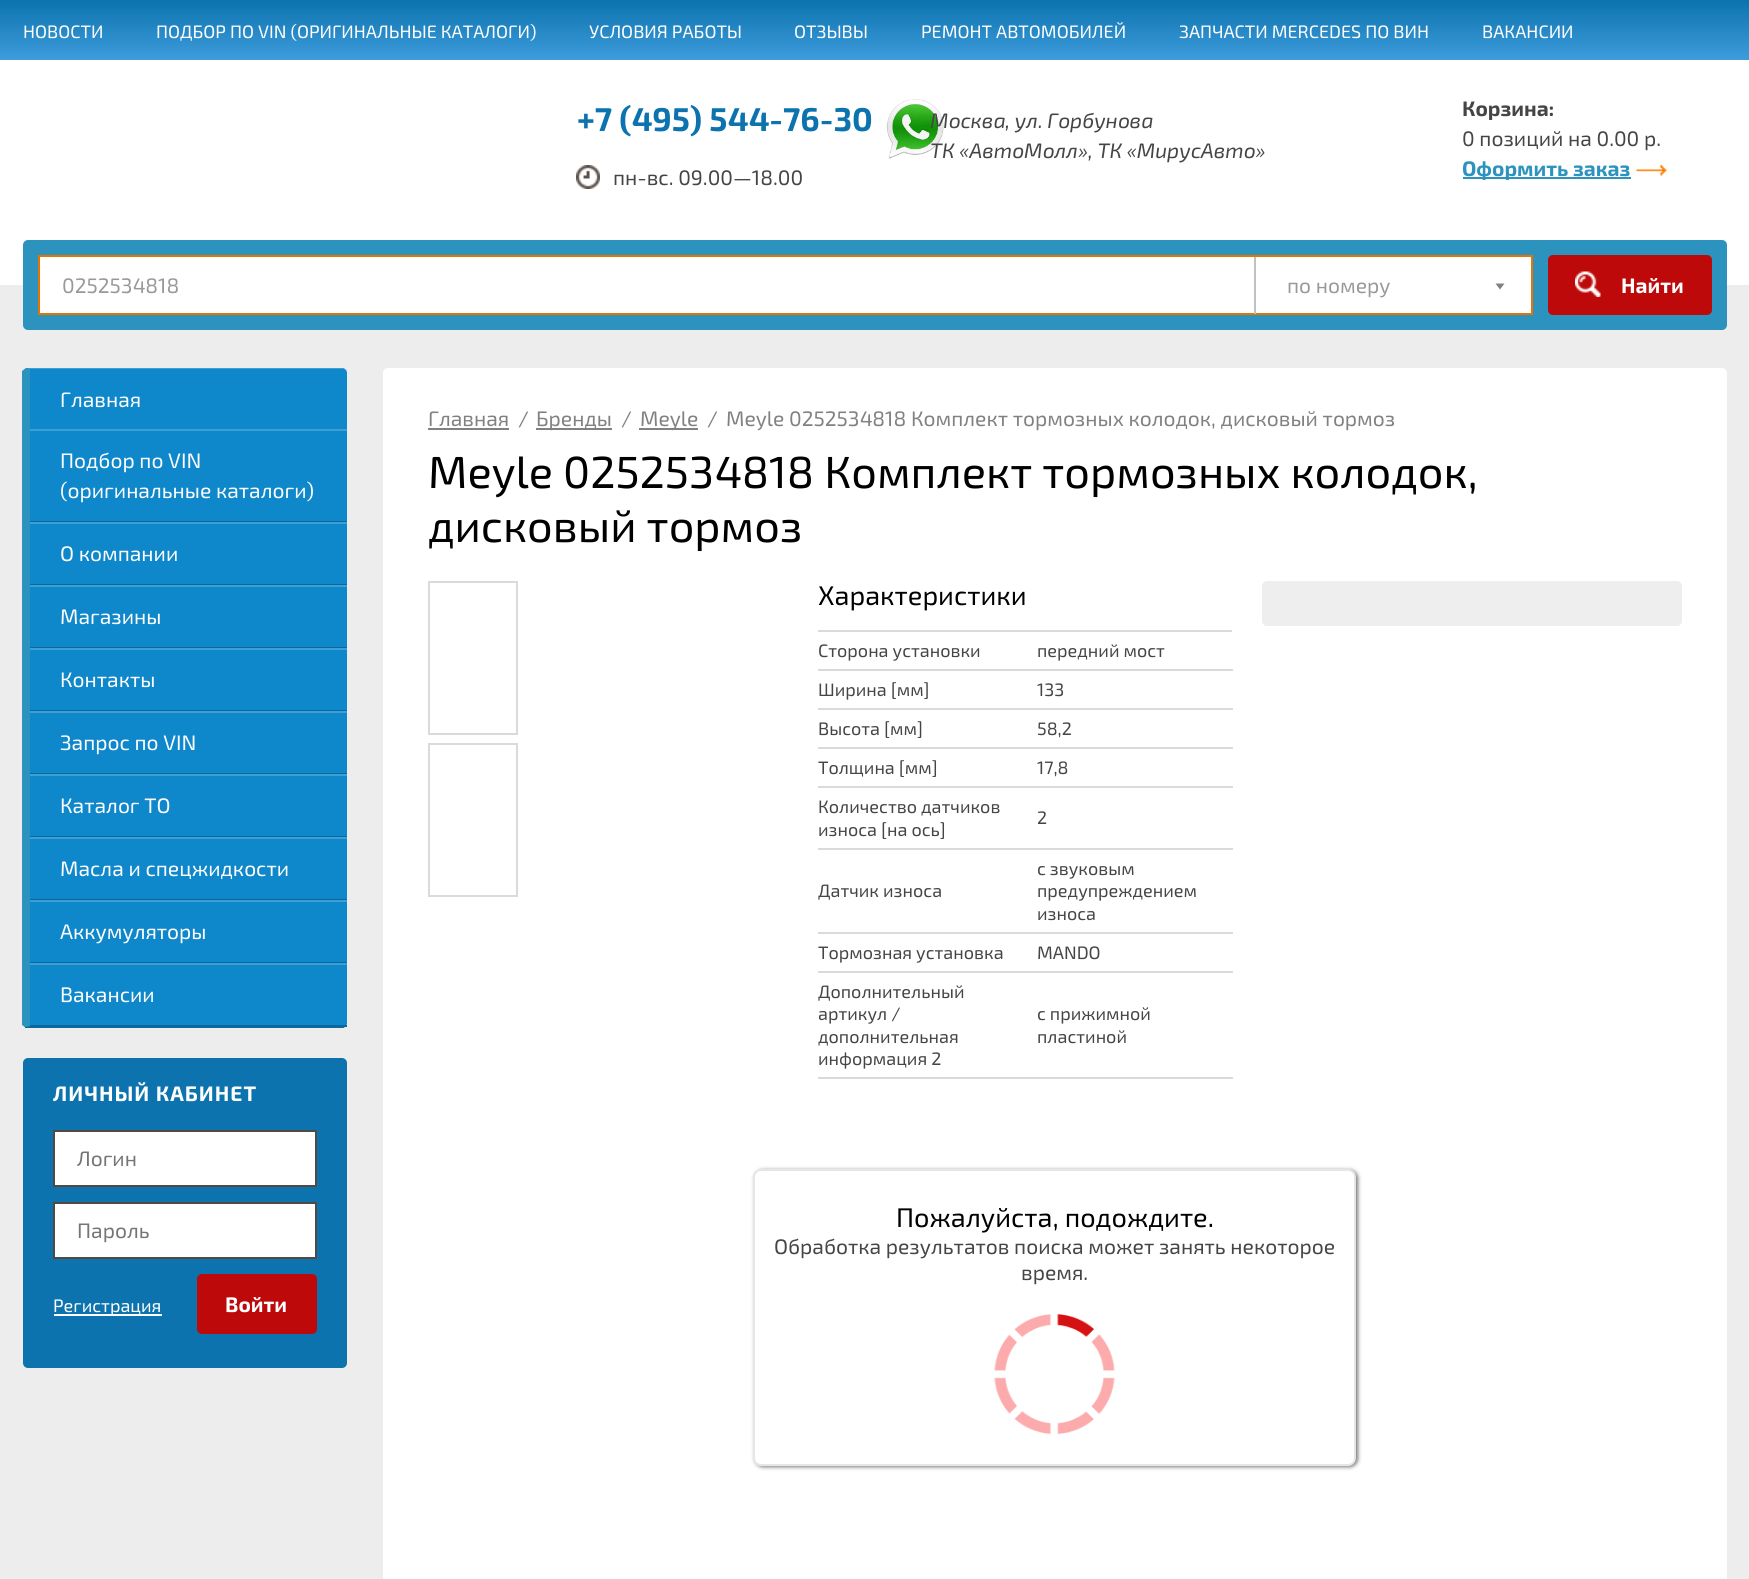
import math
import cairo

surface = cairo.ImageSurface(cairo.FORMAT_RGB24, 1749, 1579)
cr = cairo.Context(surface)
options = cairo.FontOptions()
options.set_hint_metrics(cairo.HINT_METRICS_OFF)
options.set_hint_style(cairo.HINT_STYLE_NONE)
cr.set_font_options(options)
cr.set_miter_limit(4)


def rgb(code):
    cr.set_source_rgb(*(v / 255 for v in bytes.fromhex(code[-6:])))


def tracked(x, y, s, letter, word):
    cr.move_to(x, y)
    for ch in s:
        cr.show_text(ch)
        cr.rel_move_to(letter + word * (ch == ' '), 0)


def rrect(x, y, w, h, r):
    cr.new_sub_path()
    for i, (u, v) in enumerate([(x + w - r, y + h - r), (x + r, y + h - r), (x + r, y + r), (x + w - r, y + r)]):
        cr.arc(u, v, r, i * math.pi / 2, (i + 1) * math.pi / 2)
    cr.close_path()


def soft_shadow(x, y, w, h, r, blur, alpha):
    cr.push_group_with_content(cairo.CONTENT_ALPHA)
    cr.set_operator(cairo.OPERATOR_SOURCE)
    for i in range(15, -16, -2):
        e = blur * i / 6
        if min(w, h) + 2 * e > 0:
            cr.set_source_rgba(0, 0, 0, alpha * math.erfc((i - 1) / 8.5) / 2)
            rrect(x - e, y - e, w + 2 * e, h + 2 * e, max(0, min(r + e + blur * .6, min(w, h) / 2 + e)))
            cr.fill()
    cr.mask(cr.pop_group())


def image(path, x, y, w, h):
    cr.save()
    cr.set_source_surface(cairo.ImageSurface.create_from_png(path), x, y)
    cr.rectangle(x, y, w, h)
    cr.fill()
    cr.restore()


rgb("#ededed")
cr.paint()
gradient = cairo.LinearGradient(875, 0, 875, 60)
gradient.add_color_stop_rgba(0, 0.047, 0.451, 0.682, 1)
gradient.add_color_stop_rgba(1, 0.243, 0.612, 0.863, 1)
cr.set_source(gradient)
cr.rectangle(0, 0, 1749, 60)
cr.fill()
rgb("#ffffff")
cr.rectangle(0, 60, 1749, 225)
cr.fill()
image("img/1.png", 886, 99, 58, 60)
image("img/2.png", 576, 165, 24, 24)
rgb("#2c93bf")
cr.rectangle(1463, 177, 168, 2)
cr.fill()
image("img/3.png", 1636, 165, 31, 11)
rrect(23, 240, 1704, 90, 5)
cr.fill()
rgb("#ffffff")
cr.rectangle(39, 256, 1493, 58)
cr.fill_preserve()
rgb("#e87300")
cr.stroke()
rgb("#c1c1c1")
cr.rectangle(1254, 257, 2, 57)
cr.fill()
rgb("#818181")
cr.new_path()
cr.move_to(1495.5, 283.5)
cr.line_to(1504.5, 283.5)
cr.line_to(1500, 289.5)
cr.close_path()
cr.fill()
rgb("#bd0909")
rrect(1548, 255, 164, 60, 5)
cr.fill()
image("img/4.png", 1575, 271, 26, 26)
rgb("#0e87cb")
rrect(23, 368, 324, 660, 5)
cr.fill()
rgb("#3e9fd6")
cr.new_path()
cr.move_to(27, 368)
cr.line_to(342, 368)
cr.curve_to(344, 368, 346, 370, 346, 372)
cr.curve_to(346, 370, 344, 369, 342, 369)
cr.line_to(30, 369)
cr.line_to(26, 368)
cr.close_path()
cr.fill()
rgb("#0a689c")
cr.new_path()
cr.move_to(25, 1028)
cr.line_to(25, 1027)
cr.line_to(30, 1026)
cr.line_to(342, 1026)
cr.curve_to(344, 1026, 346, 1025, 346, 1023)
cr.curve_to(346, 1025, 345, 1027, 343, 1028)
cr.close_path()
cr.fill()
rgb("#2c93bf")
cr.new_path()
cr.move_to(30, 369)
cr.line_to(30, 1026)
cr.line_to(25, 1027)
cr.line_to(22, 1025)
cr.line_to(22, 371)
cr.line_to(26, 368)
cr.close_path()
cr.fill()
for x, y, w, h, color in [
    (30, 429, 317, 2, "#3e9fd6"),
    (30, 521, 317, 1, "#0a689c"),
    (30, 522, 317, 2, "#3e9fd6"),
    (30, 584, 317, 1, "#0a689c"),
    (30, 585, 317, 2, "#3e9fd6"),
    (30, 647, 317, 1, "#0a689c"),
    (30, 648, 317, 2, "#3e9fd6"),
    (30, 710, 317, 1, "#0a689c"),
    (30, 711, 317, 2, "#3e9fd6"),
    (30, 773, 317, 1, "#0a689c"),
    (30, 774, 317, 2, "#3e9fd6"),
    (30, 836, 317, 1, "#0a689c"),
    (30, 837, 317, 2, "#3e9fd6"),
    (30, 899, 317, 1, "#0a689c"),
    (30, 900, 317, 2, "#3e9fd6"),
    (30, 962, 317, 1, "#0a689c"),
    (30, 963, 317, 2, "#3e9fd6"),
    (30, 1025, 317, 2, "#0a689c"),
]:
    rgb(color)
    cr.rectangle(x, y, w, h)
    cr.fill()
rgb("#0c73ae")
rrect(23, 1058, 324, 310, 5)
cr.fill()
rgb("#ffffff")
cr.rectangle(54, 1131, 262, 55)
cr.fill_preserve()
rgb("#514942")
cr.stroke()
rgb("#ffffff")
cr.rectangle(54, 1203, 262, 55)
cr.fill_preserve()
rgb("#514942")
cr.stroke()
rgb("#ffffff")
cr.rectangle(54, 1314, 108, 2)
cr.fill()
rgb("#bd0909")
rrect(197, 1274, 120, 60, 5)
cr.fill()
rgb("#ffffff")
rrect(383, 368, 1344, 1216, 5)
cr.fill()
for x, y, w, h, color in [
    (428, 428, 81, 2, "#818181"),
    (536, 428, 76, 2, "#818181"),
    (639, 428, 59, 2, "#818181"),
]:
    rgb(color)
    cr.rectangle(x, y, w, h)
    cr.fill()
cr.rectangle(429, 582, 88, 152)
rgb("#dadada")
cr.stroke()
cr.rectangle(429, 744, 88, 152)
cr.stroke()
for x, y, w, h, color in [
    (818, 630, 414, 2, "#dadada"),
    (818, 669, 415, 2, "#dadada"),
    (818, 708, 415, 2, "#dadada"),
    (818, 747, 415, 2, "#dadada"),
    (818, 786, 415, 2, "#dadada"),
    (818, 848, 415, 2, "#dadada"),
    (818, 932, 415, 2, "#dadada"),
    (818, 971, 415, 2, "#dadada"),
    (818, 1077, 415, 2, "#dadada"),
]:
    rgb(color)
    cr.rectangle(x, y, w, h)
    cr.fill()
rgb("#eeeeee")
rrect(1262, 581, 420, 45, 5)
cr.fill()
rgb("#777777")
soft_shadow(755, 1170, 603, 297, 8, 2, 1)
rgb("#ffffff")
rrect(754, 1170, 601, 295, 7)
cr.fill_preserve()
rgb("#e6e6e6")
cr.stroke()
image("img/5.png", 994, 1314, 121, 120)
cr.select_font_face("Exo 2")
cr.set_font_size(18)
rgb("#ffffff")
for x, y, s in [
    (23, 38, "НОВОСТИ"),
    (156, 38, "ПОДБОР ПО VIN (ОРИГИНАЛЬНЫЕ КАТАЛОГИ)"),
    (589, 38, "УСЛОВИЯ РАБОТЫ"),
    (794, 38, "ОТЗЫВЫ"),
    (921, 38, "РЕМОНТ АВТОМОБИЛЕЙ"),
    (1179, 38, "ЗАПЧАСТИ MERCEDES ПО ВИН"),
    (1482, 38, "ВАКАНСИИ"),
]:
    cr.move_to(x, y)
    cr.show_text(s)
cr.select_font_face("Exo 2", cairo.FONT_SLANT_NORMAL, cairo.FONT_WEIGHT_BOLD)
cr.set_font_size(33)
rgb("#0c73ae")
cr.move_to(577, 131)
cr.show_text("+7 (495) 544-76-30")
cr.select_font_face("Exo 2")
cr.set_font_size(21)
rgb("#454545")
cr.move_to(613, 185)
cr.show_text("пн-вс. 09.00—18.00")
cr.select_font_face("Exo 2", cairo.FONT_SLANT_ITALIC)
cr.move_to(930, 128)
cr.show_text("Москва, ул. Горбунова")
cr.move_to(930, 158)
cr.show_text("ТК «АвтоМолл», ТК «МирусАвто»")
cr.select_font_face("Exo 2", cairo.FONT_SLANT_NORMAL, cairo.FONT_WEIGHT_BOLD)
cr.move_to(1462, 116)
cr.show_text("Корзина:")
cr.select_font_face("Exo 2")
cr.move_to(1462, 146)
cr.show_text("0 позиций на 0.00 р.")
cr.select_font_face("Exo 2", cairo.FONT_SLANT_NORMAL, cairo.FONT_WEIGHT_BOLD)
rgb("#2c93bf")
cr.move_to(1462, 176)
cr.show_text("Оформить заказ")
cr.select_font_face("Exo 2")
rgb("#999999")
cr.move_to(62, 293)
cr.show_text("0252534818")
cr.move_to(1287, 293)
cr.show_text("по номеру")
cr.select_font_face("Exo 2", cairo.FONT_SLANT_NORMAL, cairo.FONT_WEIGHT_BOLD)
rgb("#ffffff")
cr.move_to(1621, 293)
cr.show_text("Найти")
cr.select_font_face("Exo 2")
for x, y, s in [
    (60, 407, "Главная"),
    (60, 468, "Подбор по VIN"),
    (60, 498, "(оригинальные каталоги)"),
    (60, 561, "О компании"),
    (60, 624, "Магазины"),
    (60, 687, "Контакты"),
    (60, 750, "Запрос по VIN"),
    (60, 813, "Каталог ТО"),
    (60, 876, "Масла и спецжидкости"),
    (60, 939, "Аккумуляторы"),
    (60, 1002, "Вакансии"),
]:
    cr.move_to(x, y)
    cr.show_text(s)
cr.select_font_face("Exo 2", cairo.FONT_SLANT_NORMAL, cairo.FONT_WEIGHT_BOLD)
tracked(53, 1101, "ЛИЧНЫЙ КАБИНЕТ", 1, 0)
cr.select_font_face("Exo 2")
rgb("#757575")
cr.move_to(77, 1166)
cr.show_text("Логин")
cr.move_to(77, 1238)
cr.show_text("Пароль")
cr.set_font_size(18)
rgb("#ffffff")
cr.move_to(53, 1312)
cr.show_text("Регистрация")
cr.select_font_face("Exo 2", cairo.FONT_SLANT_NORMAL, cairo.FONT_WEIGHT_BOLD)
cr.set_font_size(21)
cr.move_to(225, 1312)
cr.show_text("Войти")
cr.select_font_face("Exo 2")
rgb("#818181")
for x, y, s in [
    (428, 426, "Главная"),
    (518, 426, "/"),
    (536, 426, "Бренды"),
    (621, 426, "/"),
    (640, 426, "Meyle"),
    (707, 426, "/"),
    (726, 426, "Meyle 0252534818 Комплект тормозных колодок, дисковый тормоз"),
]:
    cr.move_to(x, y)
    cr.show_text(s)
cr.set_font_size(45)
rgb("#000000")
cr.move_to(428, 488)
cr.show_text("Meyle 0252534818 Комплект тормозных колодок,")
cr.move_to(428, 542)
cr.show_text("дисковый тормоз")
cr.set_font_size(27)
cr.move_to(818, 605)
cr.show_text("Характеристики")
cr.set_font_size(18)
rgb("#454545")
for x, y, s in [
    (818, 657, "Сторона установки"),
    (1037, 657, "передний мост"),
    (818, 696, "Ширина [мм]"),
    (1037, 696, "133"),
    (818, 735, "Высота [мм]"),
    (1037, 735, "58,2"),
    (818, 774, "Толщина [мм]"),
    (1037, 774, "17,8"),
    (818, 813, "Количество датчиков"),
    (818, 836, "износа [на ось]"),
    (1037, 824, "2"),
    (818, 897, "Датчик износа"),
    (1037, 875, "с звуковым"),
    (1037, 897, "предупреждением"),
    (1037, 920, "износа"),
    (818, 959, "Тормозная установка"),
    (1037, 959, "MANDO"),
    (818, 998, "Дополнительный"),
    (818, 1020, "артикул /"),
    (818, 1043, "дополнительная"),
    (818, 1065, "информация 2"),
    (1037, 1020, "с прижимной"),
    (1037, 1043, "пластиной"),
]:
    cr.move_to(x, y)
    cr.show_text(s)
cr.set_font_size(27)
rgb("#000000")
cr.move_to(896, 1227)
cr.show_text("Пожалуйста, подождите.")
cr.set_font_size(21)
rgb("#454545")
cr.move_to(774, 1254)
cr.show_text("Обработка результатов поиска может занять некоторое")
cr.move_to(1021, 1280)
cr.show_text("время.")
surface.write_to_png("page.png")
